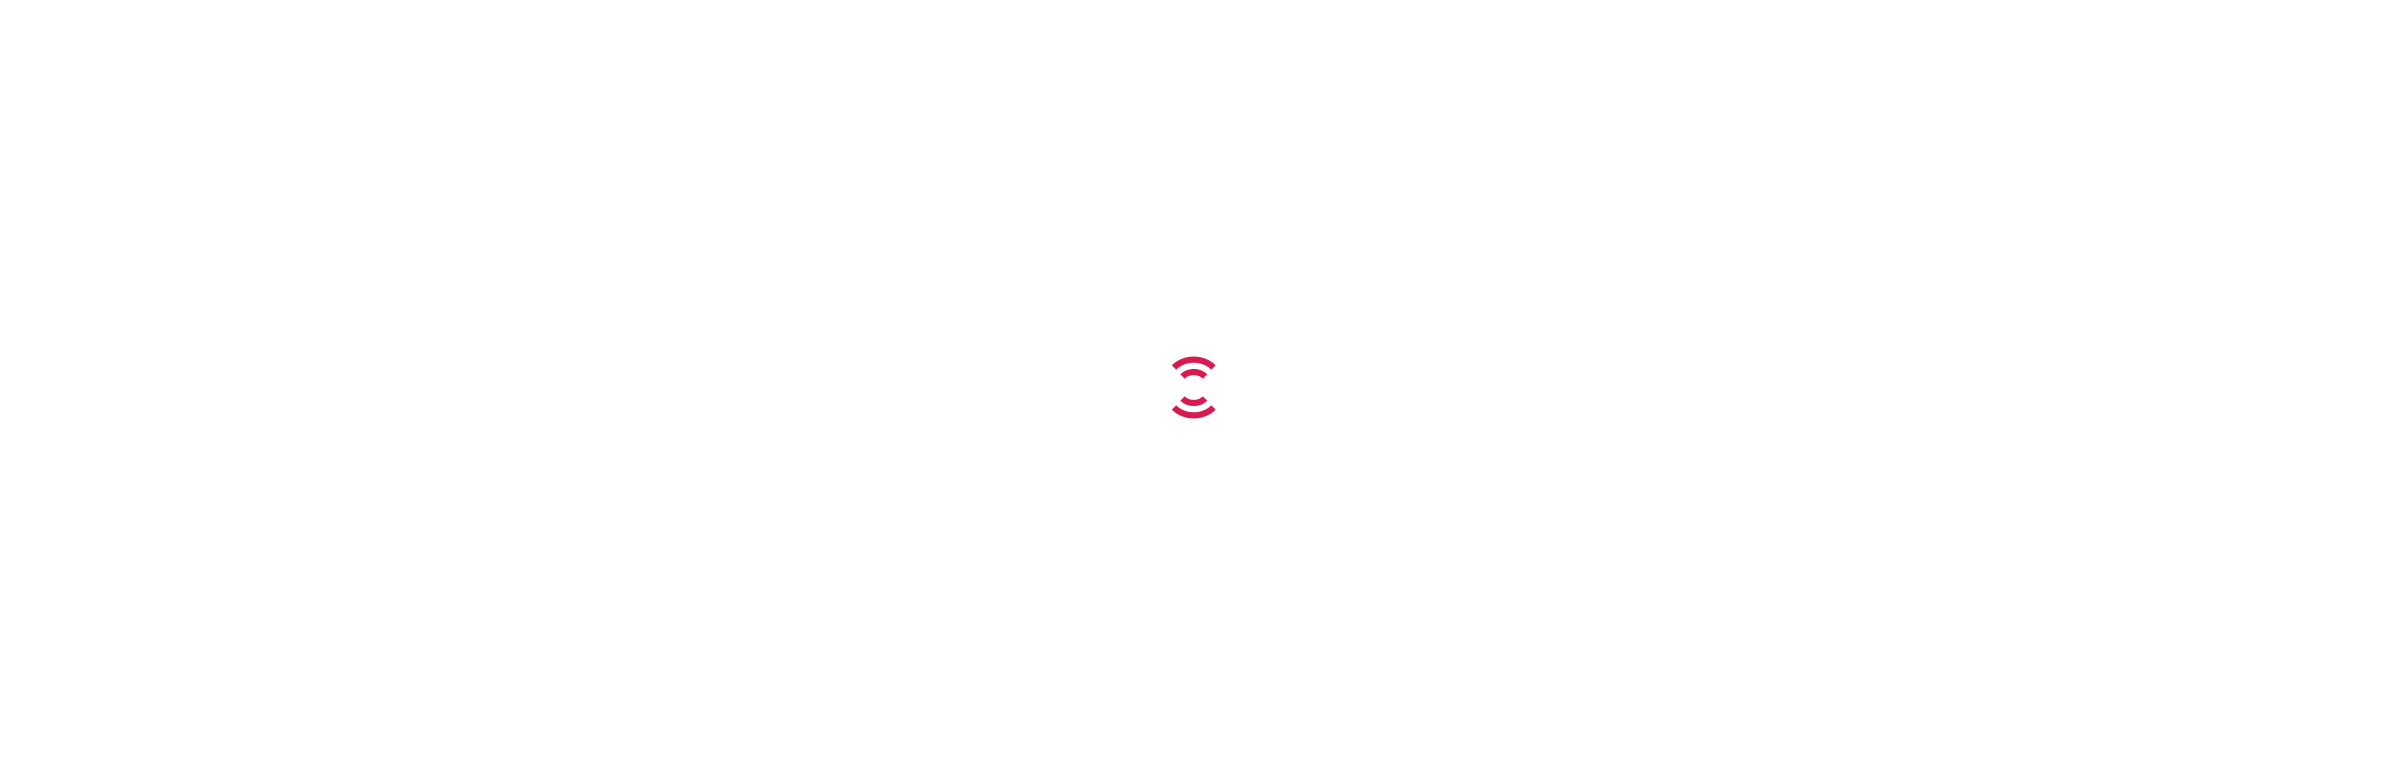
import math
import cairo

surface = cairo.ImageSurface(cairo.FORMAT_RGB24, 2387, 775)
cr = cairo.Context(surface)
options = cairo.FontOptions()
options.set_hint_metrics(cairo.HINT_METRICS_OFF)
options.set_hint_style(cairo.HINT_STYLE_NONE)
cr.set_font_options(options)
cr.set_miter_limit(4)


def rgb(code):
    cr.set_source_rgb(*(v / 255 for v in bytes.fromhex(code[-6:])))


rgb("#ffffff")
cr.paint()
cr.new_path()
cr.move_to(1174, 367.5)
cr.curve_to(1184.5, 357, 1203, 357, 1213.5, 367.5)
cr.move_to(1213.5, 407.5)
cr.curve_to(1203, 418, 1184.5, 418, 1174, 407.5)
cr.move_to(1182.5, 376.5)
cr.curve_to(1188.5, 370.5, 1199, 370.5, 1205, 376.5)
cr.move_to(1205, 398.5)
cr.curve_to(1199, 404.5, 1188.5, 404.5, 1182.5, 398.5)
rgb("#d91a50")
cr.set_line_width(6.2)
cr.stroke()
surface.write_to_png("page.png")
